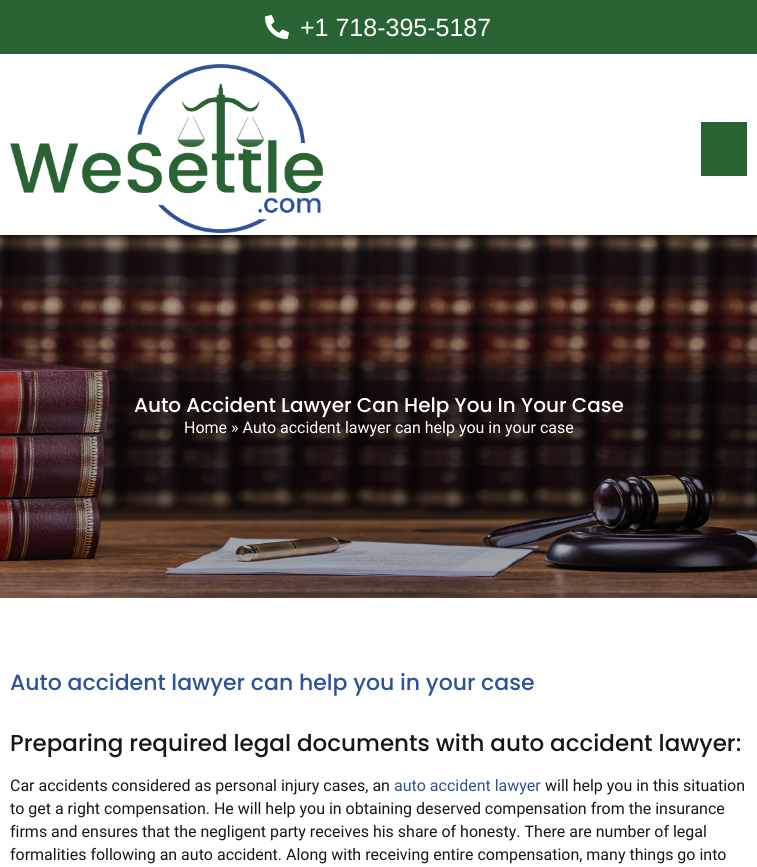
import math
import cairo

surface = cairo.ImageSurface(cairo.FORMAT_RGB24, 757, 867)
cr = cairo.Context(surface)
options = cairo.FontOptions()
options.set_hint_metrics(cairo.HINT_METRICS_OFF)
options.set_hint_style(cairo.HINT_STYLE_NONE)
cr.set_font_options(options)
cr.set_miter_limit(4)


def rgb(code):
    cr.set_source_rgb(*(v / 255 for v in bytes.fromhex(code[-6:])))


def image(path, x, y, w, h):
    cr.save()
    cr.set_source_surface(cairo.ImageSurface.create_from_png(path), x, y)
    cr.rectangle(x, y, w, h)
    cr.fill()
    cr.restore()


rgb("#ffffff")
cr.paint()
rgb("#296333")
cr.rectangle(0, 0, 757, 54)
cr.fill()
image("img/1.png", 265, 15, 24, 24)
image("img/2.png", 10, 64, 313, 169)
cr.rectangle(701, 122, 46, 54)
cr.fill()
image("img/3.png", 0, 235, 757, 363)
cr.select_font_face("Liberation Sans")
cr.set_font_size(25)
rgb("#ffffff")
cr.move_to(300, 36)
cr.show_text("+1 718-395-5187")
cr.select_font_face("Poppins Medium")
cr.set_font_size(20)
cr.move_to(134, 412)
cr.show_text("Auto Accident Lawyer Can Help You In Your Case")
cr.select_font_face("Roboto")
cr.set_font_size(16)
cr.move_to(184, 433)
cr.show_text("Home » Auto accident lawyer can help you in your case")
cr.select_font_face("Poppins Medium")
cr.set_font_size(22)
rgb("#2d5299")
cr.move_to(10, 690)
cr.show_text("Auto accident lawyer can help you in your case")
cr.set_font_size(23)
rgb("#171717")
cr.move_to(10, 751)
cr.show_text("Preparing required legal documents with auto accident lawyer:")
cr.select_font_face("Roboto")
cr.set_font_size(16)
cr.move_to(10, 791)
cr.show_text("Car accidents considered as personal injury cases, an")
rgb("#2d5299")
cr.move_to(394, 791)
cr.show_text("auto accident lawyer")
rgb("#171717")
for x, y, s in [
    (545, 791, "will help you in this situation"),
    (10, 814, "to get a right compensation. He will help you in obtaining deserved compensation from the insurance"),
    (10, 837, "firms and ensures that the negligent party receives his share of honesty. There are number of legal"),
    (10, 860, "formalities following an auto accident. Along with receiving entire compensation, many things go into"),
]:
    cr.move_to(x, y)
    cr.show_text(s)
surface.write_to_png("page.png")
